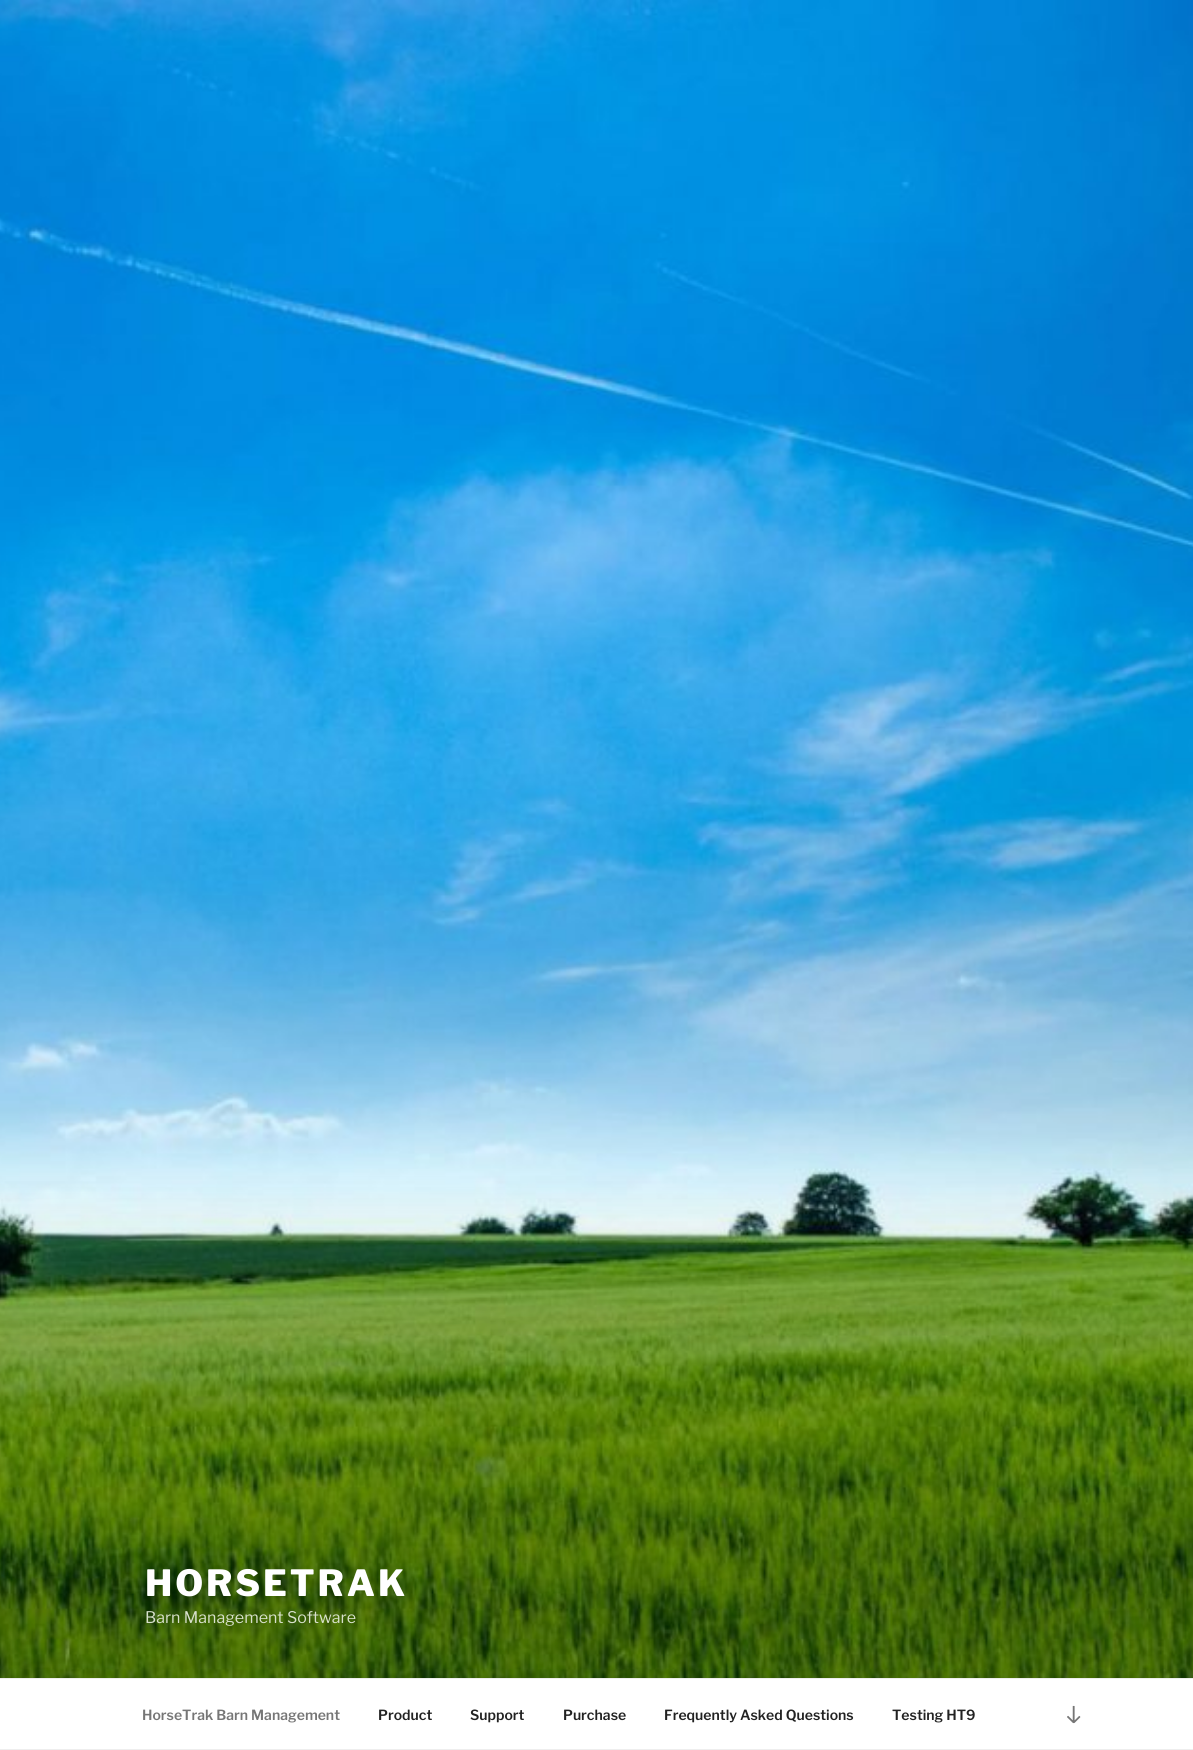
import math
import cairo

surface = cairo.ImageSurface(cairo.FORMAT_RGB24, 1193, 1750)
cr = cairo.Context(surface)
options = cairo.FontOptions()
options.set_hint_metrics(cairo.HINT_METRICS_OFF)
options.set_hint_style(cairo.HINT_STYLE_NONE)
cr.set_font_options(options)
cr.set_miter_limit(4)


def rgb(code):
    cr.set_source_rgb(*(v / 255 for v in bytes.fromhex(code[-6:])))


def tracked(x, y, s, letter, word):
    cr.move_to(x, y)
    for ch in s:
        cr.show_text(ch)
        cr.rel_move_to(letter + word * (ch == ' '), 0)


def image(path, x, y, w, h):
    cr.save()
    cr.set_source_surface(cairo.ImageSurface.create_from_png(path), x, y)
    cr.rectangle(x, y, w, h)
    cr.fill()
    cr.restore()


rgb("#ffffff")
cr.paint()
image("img/1.png", 0, 0, 1193, 1678)
rgb("#eeeeee")
cr.rectangle(0, 1678, 1193, 1)
cr.fill()
cr.rectangle(0, 1749, 1193, 1)
cr.fill()
image("img/2.png", 1067, 1705, 14, 19)
cr.select_font_face("Libre Franklin Thin")
cr.set_font_size(36)
rgb("#ffffff")
tracked(145, 1596, "HORSETRAK", 2.9, 0)
cr.select_font_face("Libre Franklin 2 Thin")
cr.set_font_size(16)
rgb("#d8e0cd")
cr.move_to(145, 1623)
cr.show_text("Barn Management Software")
cr.select_font_face("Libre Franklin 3 Thin")
cr.set_font_size(14)
rgb("#767676")
cr.move_to(142, 1720)
cr.show_text("HorseTrak Barn Management")
rgb("#222222")
for x, y, s in [
    (378, 1720, "Product"),
    (470, 1720, "Support"),
    (563, 1720, "Purchase"),
    (664, 1720, "Frequently Asked Questions"),
    (892, 1720, "Testing HT9"),
]:
    cr.move_to(x, y)
    cr.show_text(s)
surface.write_to_png("page.png")
